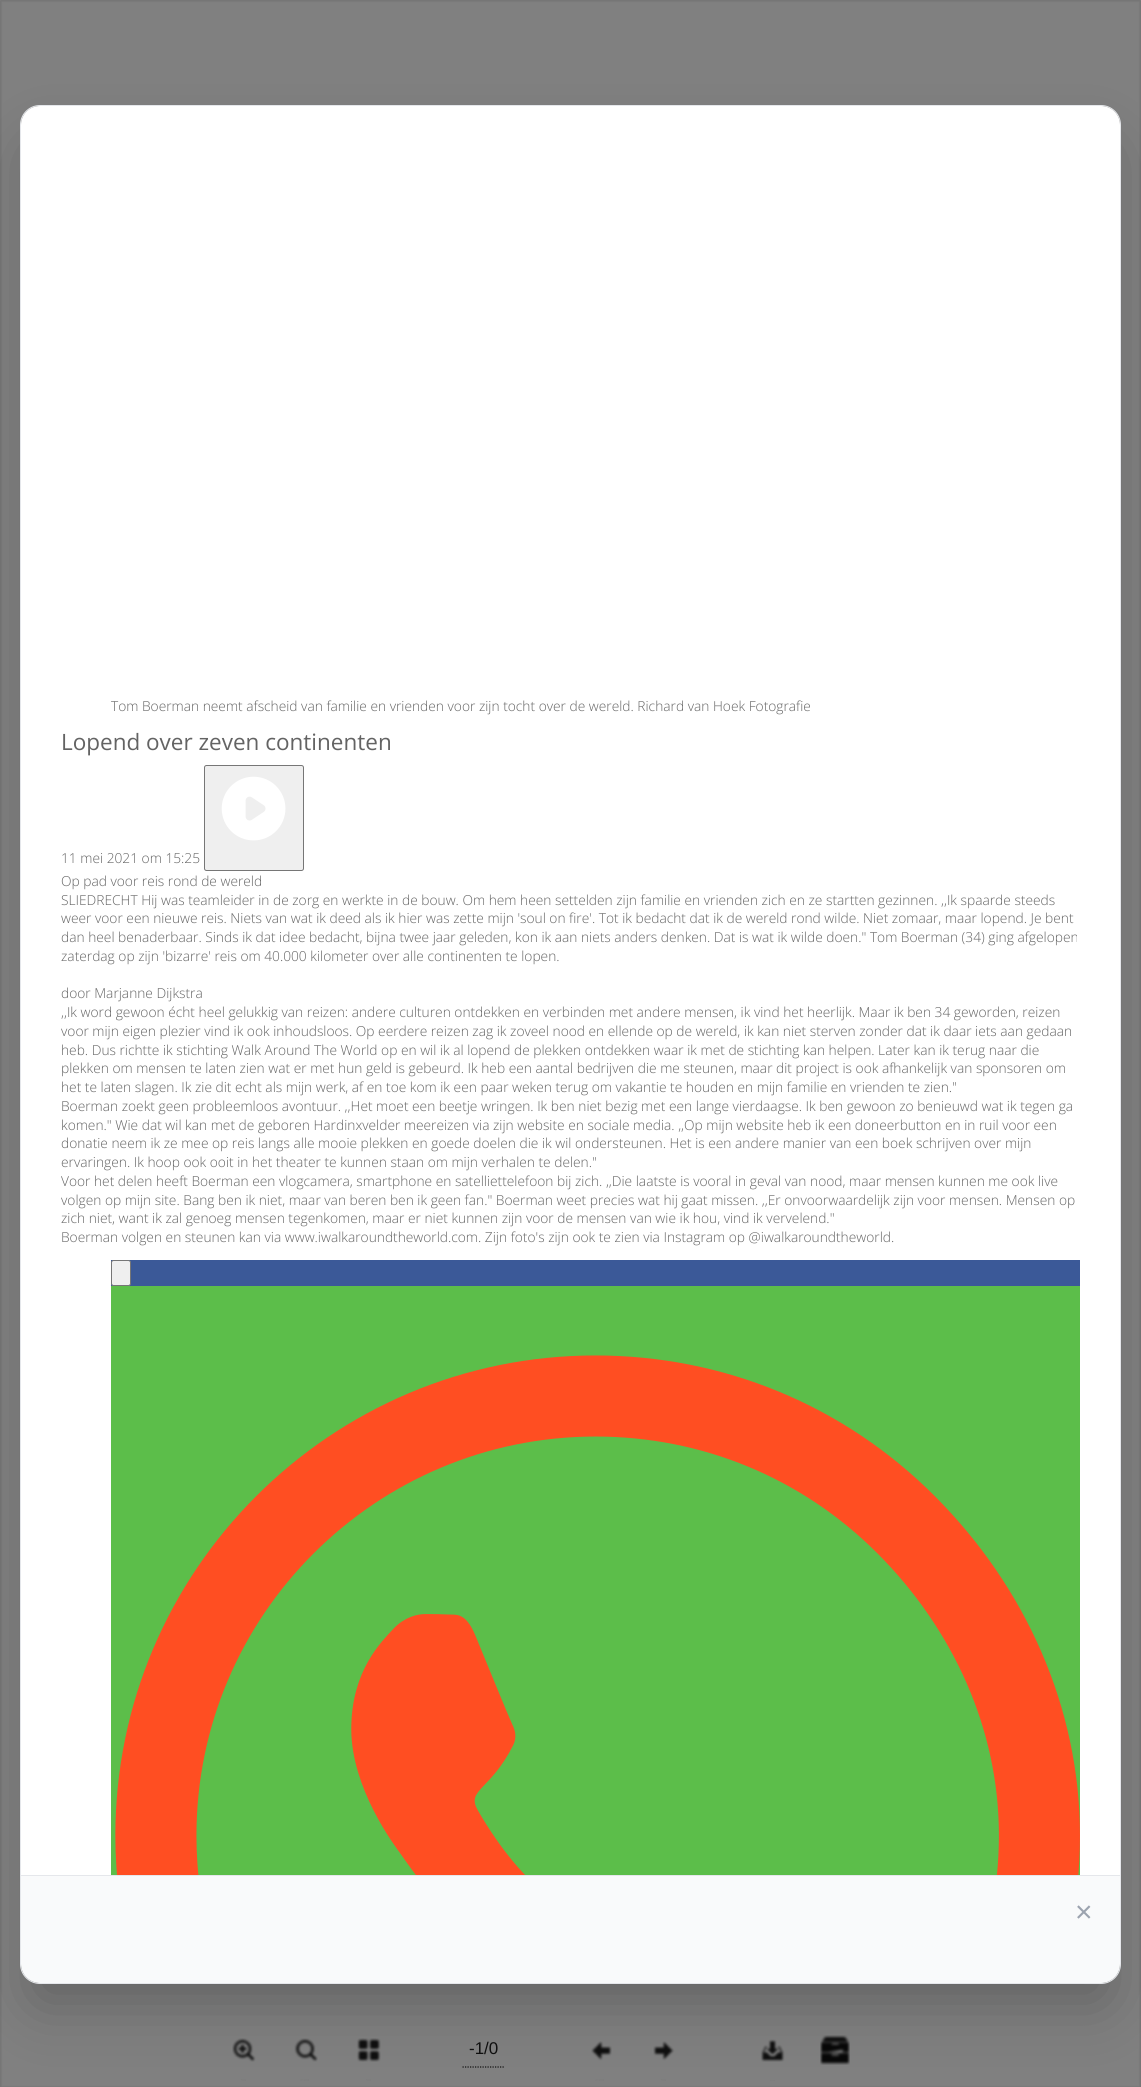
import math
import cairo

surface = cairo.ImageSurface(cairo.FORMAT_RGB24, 1141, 2087)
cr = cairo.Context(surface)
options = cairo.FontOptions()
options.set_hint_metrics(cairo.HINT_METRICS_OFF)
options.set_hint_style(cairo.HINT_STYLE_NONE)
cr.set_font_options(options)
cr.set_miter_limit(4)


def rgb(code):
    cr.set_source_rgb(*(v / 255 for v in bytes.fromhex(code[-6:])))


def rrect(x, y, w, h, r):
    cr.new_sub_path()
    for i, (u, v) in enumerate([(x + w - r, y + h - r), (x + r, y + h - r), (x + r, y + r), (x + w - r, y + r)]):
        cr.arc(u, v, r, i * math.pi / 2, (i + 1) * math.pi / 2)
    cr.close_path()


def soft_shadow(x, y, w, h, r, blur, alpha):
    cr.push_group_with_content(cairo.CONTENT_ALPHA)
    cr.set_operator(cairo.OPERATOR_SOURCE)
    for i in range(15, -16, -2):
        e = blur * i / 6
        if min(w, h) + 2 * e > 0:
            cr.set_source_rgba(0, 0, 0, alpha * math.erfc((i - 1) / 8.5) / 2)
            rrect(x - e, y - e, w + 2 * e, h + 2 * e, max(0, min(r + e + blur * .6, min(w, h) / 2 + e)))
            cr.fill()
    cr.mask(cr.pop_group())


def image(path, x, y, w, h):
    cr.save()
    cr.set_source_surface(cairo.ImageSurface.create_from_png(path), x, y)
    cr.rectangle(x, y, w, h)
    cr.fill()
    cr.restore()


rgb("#ffffff")
cr.paint()
rgb("#191919")
soft_shadow(0, 0, 1141, 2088, 0, 1, 1)
rgb("#808080")
soft_shadow(0, 0, 1141, 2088, 0, 1, 1)
image("img/3.png", 232, 2038, 24, 24)
image("img/4.png", 241, 2079, 5, 2)
image("img/5.png", 294, 2038, 24, 24)
image("img/6.png", 300, 2079, 9, 2)
image("img/7.png", 356, 2038, 25, 24)
image("img/4.png", 366, 2079, 5, 2)
cr.new_path()
cr.move_to(462.5, 2067)
cr.line_to(505, 2067)
rgb("#0f0f0f")
cr.set_line_width(1.2)
cr.set_dash([1.25, 1.25])
cr.stroke()
image("img/8.png", 591, 2041, 21, 20)
image("img/6.png", 595, 2079, 9, 2)
image("img/9.png", 653, 2041, 22, 20)
image("img/4.png", 661, 2079, 5, 2)
image("img/10.png", 760, 2039, 25, 23)
image("img/11.png", 770, 2080, 5, 1)
image("img/12.png", 820, 2035, 30, 30)
rgb("#000000")
soft_shadow(35, 151, 1071, 1849, 5, 31, 0.25)
rrect(20.5, 105.5, 1100, 1878, 19.5)
rgb("#e5e7eb")
cr.set_line_width(1)
cr.set_dash([])
cr.stroke()
rgb("#ffffff")
cr.new_path()
cr.move_to(40, 106)
cr.line_to(1101, 106)
cr.curve_to(1111.5, 106, 1120, 114.5, 1120, 125)
cr.line_to(1120, 1875)
cr.line_to(21, 1875)
cr.line_to(21, 125)
cr.curve_to(21, 114.5, 29.5, 106, 40, 106)
cr.close_path()
cr.fill()
rgb("#efefef")
rrect(204.5, 765.5, 99, 105, 2)
cr.fill_preserve()
rgb("#767676")
cr.stroke()
image("img/1.png", 221, 776, 65, 65)
rgb("#3b5998")
cr.rectangle(111, 1260, 969, 26)
cr.fill()
rgb("#efefef")
rrect(111.5, 1260.5, 19, 25, 2)
cr.fill_preserve()
rgb("#767676")
cr.stroke()
rgb("#5cbe4a")
cr.rectangle(111, 1286, 969, 589)
cr.fill()
image("img/2.png", 115, 1355, 965, 520)
rgb("#f9fafb")
cr.new_path()
cr.move_to(21, 1875)
cr.line_to(1120, 1875)
cr.line_to(1120, 1964)
cr.curve_to(1120, 1974.5, 1111.5, 1983, 1101, 1983)
cr.line_to(40, 1983)
cr.curve_to(29.5, 1983, 21, 1974.5, 21, 1964)
cr.close_path()
cr.fill()
rgb("#e5e7eb")
cr.rectangle(21, 1875, 1099, 1)
cr.fill()
cr.select_font_face("Open Sans Light")
cr.set_font_size(13.75)
rgb("#636363")
cr.move_to(111, 711)
cr.show_text("Tom Boerman neemt afscheid van familie en vrienden voor zijn tocht over de wereld. Richard van Hoek Fotografie")
cr.select_font_face("Open Sans")
cr.set_font_size(22.5)
cr.move_to(61, 750)
cr.show_text("Lopend over zeven continenten")
cr.select_font_face("Open Sans Light")
cr.set_font_size(13.75)
for x, y, s in [
    (61, 863, "11 mei 2021 om 15:25"),
    (61, 886, "Op pad voor reis rond de wereld"),
    (61, 905, "SLIEDRECHT Hij was teamleider in de zorg en werkte in de bouw. Om hem heen settelden zijn familie en vrienden zich en ze startten gezinnen. ,,Ik spaarde steeds"),
    (61, 923, "weer voor een nieuwe reis. Niets van wat ik deed als ik hier was zette mijn 'soul on fire'. Tot ik bedacht dat ik de wereld rond wilde. Niet zomaar, maar lopend. Je bent"),
    (61, 942, "dan heel benaderbaar. Sinds ik dat idee bedacht, bijna twee jaar geleden, kon ik aan niets anders denken. Dat is wat ik wilde doen.\" Tom Boerman (34) ging afgelopen"),
    (61, 961, "zaterdag op zijn 'bizarre' reis om 40.000 kilometer over alle continenten te lopen."),
    (61, 998, "door Marjanne Dijkstra"),
    (61, 1017, ",,Ik word gewoon écht heel gelukkig van reizen: andere culturen ontdekken en verbinden met andere mensen, ik vind het heerlijk. Maar ik ben 34 geworden, reizen"),
    (61, 1036, "voor mijn eigen plezier vind ik ook inhoudsloos. Op eerdere reizen zag ik zoveel nood en ellende op de wereld, ik kan niet sterven zonder dat ik daar iets aan gedaan"),
    (61, 1055, "heb. Dus richtte ik stichting Walk Around The World op en wil ik al lopend de plekken ontdekken waar ik met de stichting kan helpen. Later kan ik terug naar die"),
    (61, 1073, "plekken om mensen te laten zien wat er met hun geld is gebeurd. Ik heb een aantal bedrijven die me steunen, maar dit project is ook afhankelijk van sponsoren om"),
    (61, 1092, "het te laten slagen. Ik zie dit echt als mijn werk, af en toe kom ik een paar weken terug om vakantie te houden en mijn familie en vrienden te zien.\""),
    (61, 1111, "Boerman zoekt geen probleemloos avontuur. ,,Het moet een beetje wringen. Ik ben niet bezig met een lange vierdaagse. Ik ben gewoon zo benieuwd wat ik tegen ga"),
    (61, 1130, "komen.\" Wie dat wil kan met de geboren Hardinxvelder meereizen via zijn website en sociale media. ,,Op mijn website heb ik een doneerbutton en in ruil voor een"),
    (61, 1148, "donatie neem ik ze mee op reis langs alle mooie plekken en goede doelen die ik wil ondersteunen. Het is een andere manier van een boek schrijven over mijn"),
    (61, 1167, "ervaringen. Ik hoop ook ooit in het theater te kunnen staan om mijn verhalen te delen.\""),
    (61, 1186, "Voor het delen heeft Boerman een vlogcamera, smartphone en satelliettelefoon bij zich. ,,Die laatste is vooral in geval van nood, maar mensen kunnen me ook live"),
    (61, 1205, "volgen op mijn site. Bang ben ik niet, maar van beren ben ik geen fan.\" Boerman weet precies wat hij gaat missen. ,,Er onvoorwaardelijk zijn voor mensen. Mensen op"),
    (61, 1223, "zich niet, want ik zal genoeg mensen tegenkomen, maar er niet kunnen zijn voor de mensen van wie ik hou, vind ik vervelend.\""),
    (61, 1242, "Boerman volgen en steunen kan via www.iwalkaroundtheworld.com. Zijn foto's zijn ook te zien via Instagram op @iwalkaroundtheworld."),
]:
    cr.move_to(x, y)
    cr.show_text(s)
cr.select_font_face("Liberation Sans")
cr.set_font_size(30)
rgb("#9ca3af")
cr.move_to(1075, 1922)
cr.show_text("×")
cr.set_font_size(17)
rgb("#0f0f0f")
cr.move_to(469, 2054)
cr.show_text("-1/0")
surface.write_to_png("page.png")
